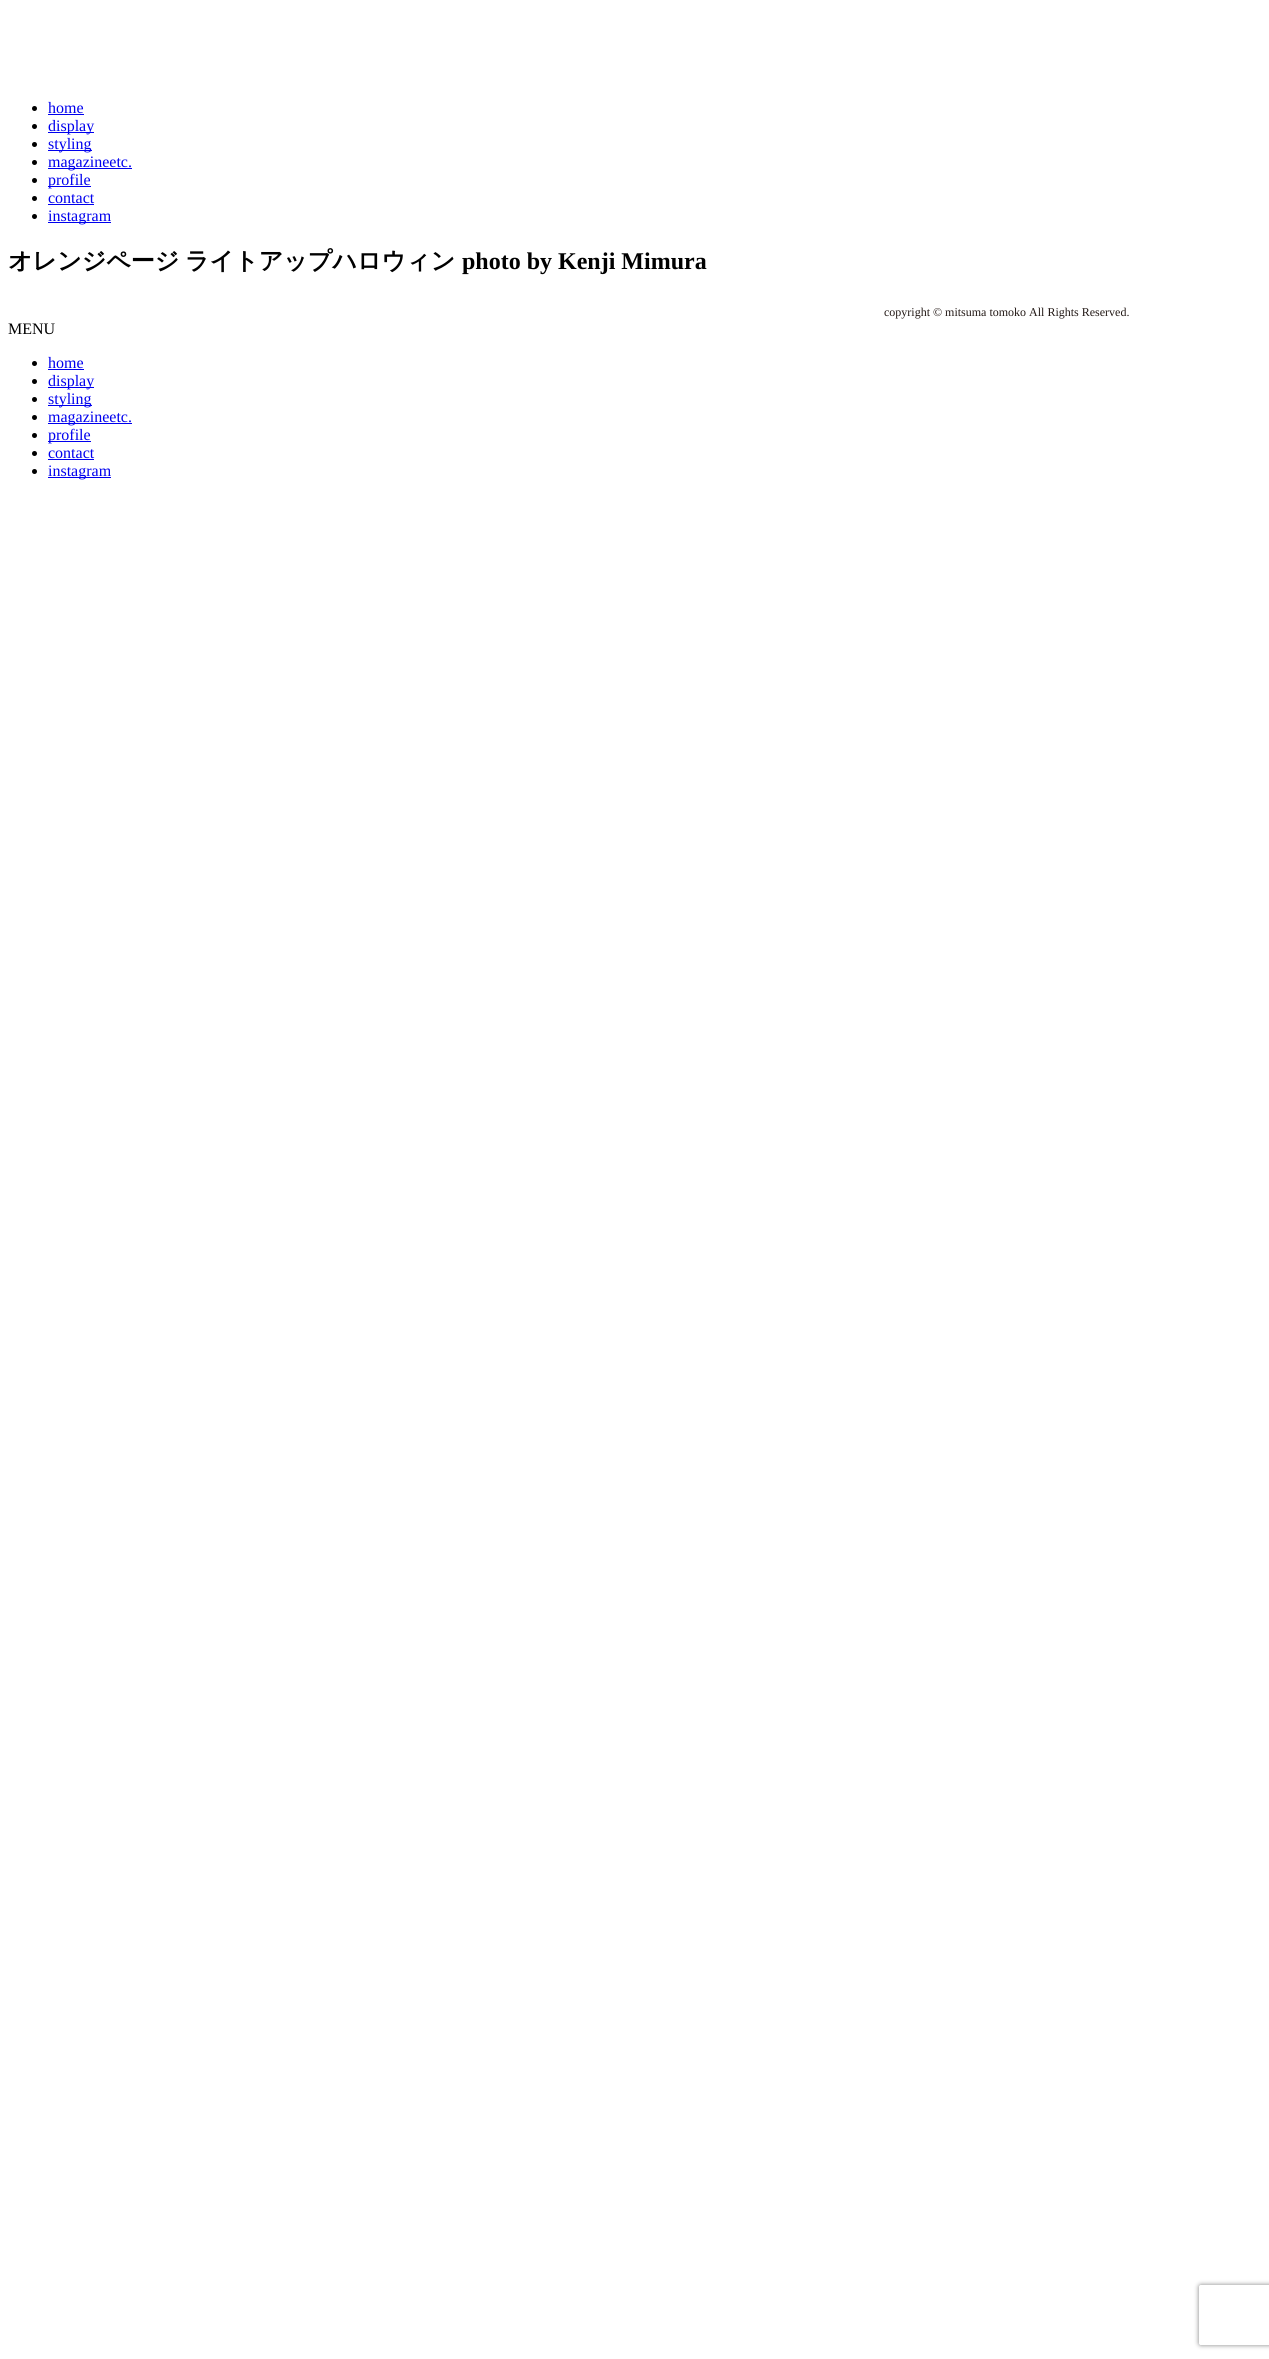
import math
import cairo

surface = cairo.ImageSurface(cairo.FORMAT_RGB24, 1269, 2359)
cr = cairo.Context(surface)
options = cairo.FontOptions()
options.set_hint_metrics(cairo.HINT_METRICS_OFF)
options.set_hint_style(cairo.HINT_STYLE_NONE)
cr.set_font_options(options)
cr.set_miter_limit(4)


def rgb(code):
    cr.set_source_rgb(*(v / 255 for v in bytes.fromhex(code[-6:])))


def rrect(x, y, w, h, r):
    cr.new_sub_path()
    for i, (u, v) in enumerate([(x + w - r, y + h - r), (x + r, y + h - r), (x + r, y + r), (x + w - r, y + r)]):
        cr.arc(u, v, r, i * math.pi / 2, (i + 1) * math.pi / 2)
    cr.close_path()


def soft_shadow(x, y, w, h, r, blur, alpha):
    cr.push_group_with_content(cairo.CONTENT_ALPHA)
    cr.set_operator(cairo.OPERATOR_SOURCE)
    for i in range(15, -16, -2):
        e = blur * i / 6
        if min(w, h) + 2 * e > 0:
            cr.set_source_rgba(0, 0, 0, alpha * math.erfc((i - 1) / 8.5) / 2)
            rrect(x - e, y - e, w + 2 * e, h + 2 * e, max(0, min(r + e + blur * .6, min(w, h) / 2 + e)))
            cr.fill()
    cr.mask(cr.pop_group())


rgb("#ffffff")
cr.paint()
rgb("#000000")
cr.arc(34.5, 108.5, 2.5, 0, 2 * math.pi)
cr.fill()
rgb("#0000ee")
cr.rectangle(48, 114, 36, 1)
cr.fill()
rgb("#000000")
cr.arc(34.5, 126.5, 2.5, 0, 2 * math.pi)
cr.fill()
rgb("#0000ee")
cr.rectangle(48, 132, 46, 1)
cr.fill()
rgb("#000000")
cr.arc(34.5, 144.5, 2.5, 0, 2 * math.pi)
cr.fill()
rgb("#0000ee")
cr.rectangle(48, 150, 44, 1)
cr.fill()
rgb("#000000")
cr.arc(34.5, 162.5, 2.5, 0, 2 * math.pi)
cr.fill()
rgb("#0000ee")
cr.rectangle(48, 168, 84, 1)
cr.fill()
rgb("#000000")
cr.arc(34.5, 180.5, 2.5, 0, 2 * math.pi)
cr.fill()
rgb("#0000ee")
cr.rectangle(48, 186, 43, 1)
cr.fill()
rgb("#000000")
cr.arc(34.5, 198.5, 2.5, 0, 2 * math.pi)
cr.fill()
rgb("#0000ee")
cr.rectangle(48, 204, 46, 1)
cr.fill()
rgb("#000000")
cr.arc(34.5, 216.5, 2.5, 0, 2 * math.pi)
cr.fill()
rgb("#0000ee")
cr.rectangle(48, 222, 63, 1)
cr.fill()
rgb("#000000")
cr.arc(34.5, 363.5, 2.5, 0, 2 * math.pi)
cr.fill()
rgb("#0000ee")
cr.rectangle(48, 369, 36, 1)
cr.fill()
rgb("#000000")
cr.arc(34.5, 381.5, 2.5, 0, 2 * math.pi)
cr.fill()
rgb("#0000ee")
cr.rectangle(48, 387, 46, 1)
cr.fill()
rgb("#000000")
cr.arc(34.5, 399.5, 2.5, 0, 2 * math.pi)
cr.fill()
rgb("#0000ee")
cr.rectangle(48, 405, 44, 1)
cr.fill()
rgb("#000000")
cr.arc(34.5, 417.5, 2.5, 0, 2 * math.pi)
cr.fill()
rgb("#0000ee")
cr.rectangle(48, 423, 84, 1)
cr.fill()
rgb("#000000")
cr.arc(34.5, 435.5, 2.5, 0, 2 * math.pi)
cr.fill()
rgb("#0000ee")
cr.rectangle(48, 441, 43, 1)
cr.fill()
rgb("#000000")
cr.arc(34.5, 453.5, 2.5, 0, 2 * math.pi)
cr.fill()
rgb("#0000ee")
cr.rectangle(48, 459, 46, 1)
cr.fill()
rgb("#000000")
cr.arc(34.5, 471.5, 2.5, 0, 2 * math.pi)
cr.fill()
rgb("#0000ee")
cr.rectangle(48, 477, 63, 1)
cr.fill()
cr.save()
cr.set_fill_rule(cairo.FILL_RULE_EVEN_ODD)
cr.new_path()
cr.move_to(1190, 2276)
cr.line_to(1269, 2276)
cr.line_to(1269, 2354)
cr.line_to(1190, 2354)
cr.close_path()
cr.move_to(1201, 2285)
cr.line_to(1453, 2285)
cr.curve_to(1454, 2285, 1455, 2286, 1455, 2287)
cr.line_to(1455, 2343)
cr.curve_to(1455, 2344, 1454, 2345, 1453, 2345)
cr.line_to(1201, 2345)
cr.curve_to(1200, 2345, 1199, 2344, 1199, 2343)
cr.line_to(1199, 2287)
cr.curve_to(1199, 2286, 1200, 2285, 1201, 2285)
cr.close_path()
cr.clip()
rgb("#808080")
soft_shadow(1199, 2285, 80, 60, 2, 2.5, 1)
cr.restore()
cr.select_font_face("Liberation Serif")
cr.set_font_size(16)
for x, y, s in [
    (48, 113, "home"),
    (48, 131, "display"),
    (48, 149, "styling"),
    (48, 167, "magazineetc."),
    (48, 185, "profile"),
    (48, 203, "contact"),
    (48, 221, "instagram"),
]:
    cr.move_to(x, y)
    cr.show_text(s)
cr.select_font_face("WenQuanYi Zen Hei", cairo.FONT_SLANT_NORMAL, cairo.FONT_WEIGHT_BOLD)
cr.set_font_size(24)
rgb("#000000")
cr.move_to(8, 269)
cr.show_text("オレンジページ")
cr.move_to(185, 269)
cr.show_text("ライトアップハロウィン")
cr.select_font_face("Liberation Serif", cairo.FONT_SLANT_NORMAL, cairo.FONT_WEIGHT_BOLD)
cr.move_to(462, 269)
cr.show_text("photo by Kenji Mimura")
cr.select_font_face("Liberation Serif")
cr.set_font_size(12)
rgb("#221815")
cr.move_to(884, 316)
cr.show_text("copyright © mitsuma tomoko All Rights Reserved.")
cr.set_font_size(16)
rgb("#000000")
cr.move_to(8, 334)
cr.show_text("MENU")
rgb("#0000ee")
for x, y, s in [
    (48, 368, "home"),
    (48, 386, "display"),
    (48, 404, "styling"),
    (48, 422, "magazineetc."),
    (48, 440, "profile"),
    (48, 458, "contact"),
    (48, 476, "instagram"),
]:
    cr.move_to(x, y)
    cr.show_text(s)
surface.write_to_png("page.png")
